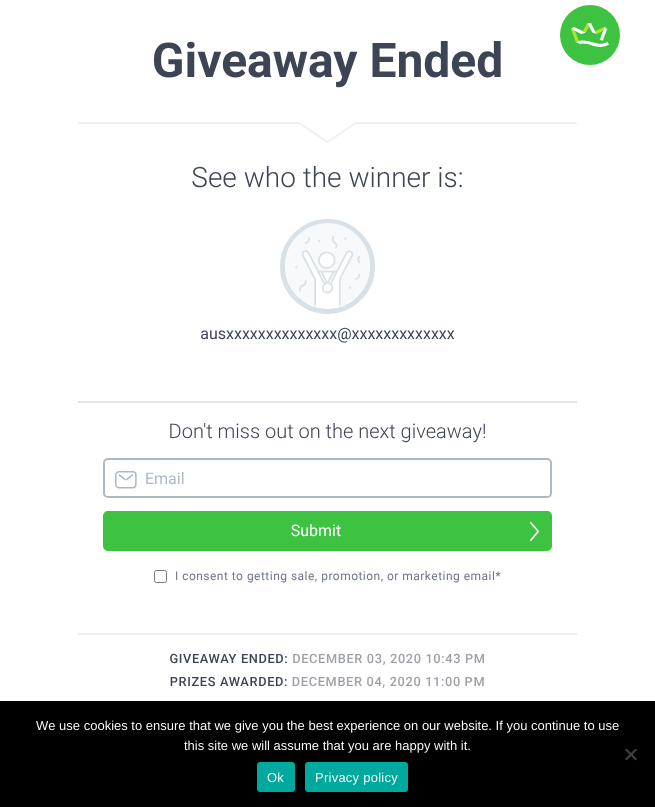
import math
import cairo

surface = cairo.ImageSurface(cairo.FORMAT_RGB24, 655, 807)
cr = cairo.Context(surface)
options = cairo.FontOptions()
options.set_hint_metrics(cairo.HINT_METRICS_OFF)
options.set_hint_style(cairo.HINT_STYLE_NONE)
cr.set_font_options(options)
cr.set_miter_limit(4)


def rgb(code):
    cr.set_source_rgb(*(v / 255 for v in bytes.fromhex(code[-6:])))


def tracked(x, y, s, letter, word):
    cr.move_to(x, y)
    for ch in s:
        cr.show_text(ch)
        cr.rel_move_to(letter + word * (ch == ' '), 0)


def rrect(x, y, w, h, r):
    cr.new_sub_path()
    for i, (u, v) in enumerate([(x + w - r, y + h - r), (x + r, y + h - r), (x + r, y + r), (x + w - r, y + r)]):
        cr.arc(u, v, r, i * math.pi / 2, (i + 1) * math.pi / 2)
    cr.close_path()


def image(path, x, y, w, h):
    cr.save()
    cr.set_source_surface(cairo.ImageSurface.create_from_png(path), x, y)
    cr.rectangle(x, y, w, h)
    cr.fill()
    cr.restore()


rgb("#ffffff")
cr.paint()
image("img/1.png", 78, 5, 542, 696)
rgb("#000000")
cr.rectangle(0, 701, 655, 106)
cr.fill()
rgb("#404040")
cr.new_path()
cr.move_to(635.5, 748.5)
cr.line_to(637, 750)
cr.line_to(626.5, 760.5)
cr.line_to(625, 759)
cr.close_path()
cr.fill()
cr.new_path()
cr.move_to(625, 750)
cr.line_to(626.5, 748.5)
cr.line_to(637, 759)
cr.line_to(635.5, 760.5)
cr.close_path()
cr.fill()
rgb("#00a99d")
rrect(257, 762, 38, 30, 3)
cr.fill()
rrect(305, 762, 103, 30, 3)
cr.fill()
cr.select_font_face("Liberation Sans")
cr.set_font_size(13)
rgb("#ffffff")
cr.move_to(36, 730)
cr.show_text("We use cookies to ensure that we give you the best experience on our website. If you continue to use")
cr.move_to(184, 750)
cr.show_text("this site we will assume that you are happy with it.")
tracked(267, 782, "Ok", 0.25, 0)
tracked(315, 782, "Privacy policy", 0.25, 0)
surface.write_to_png("page.png")
